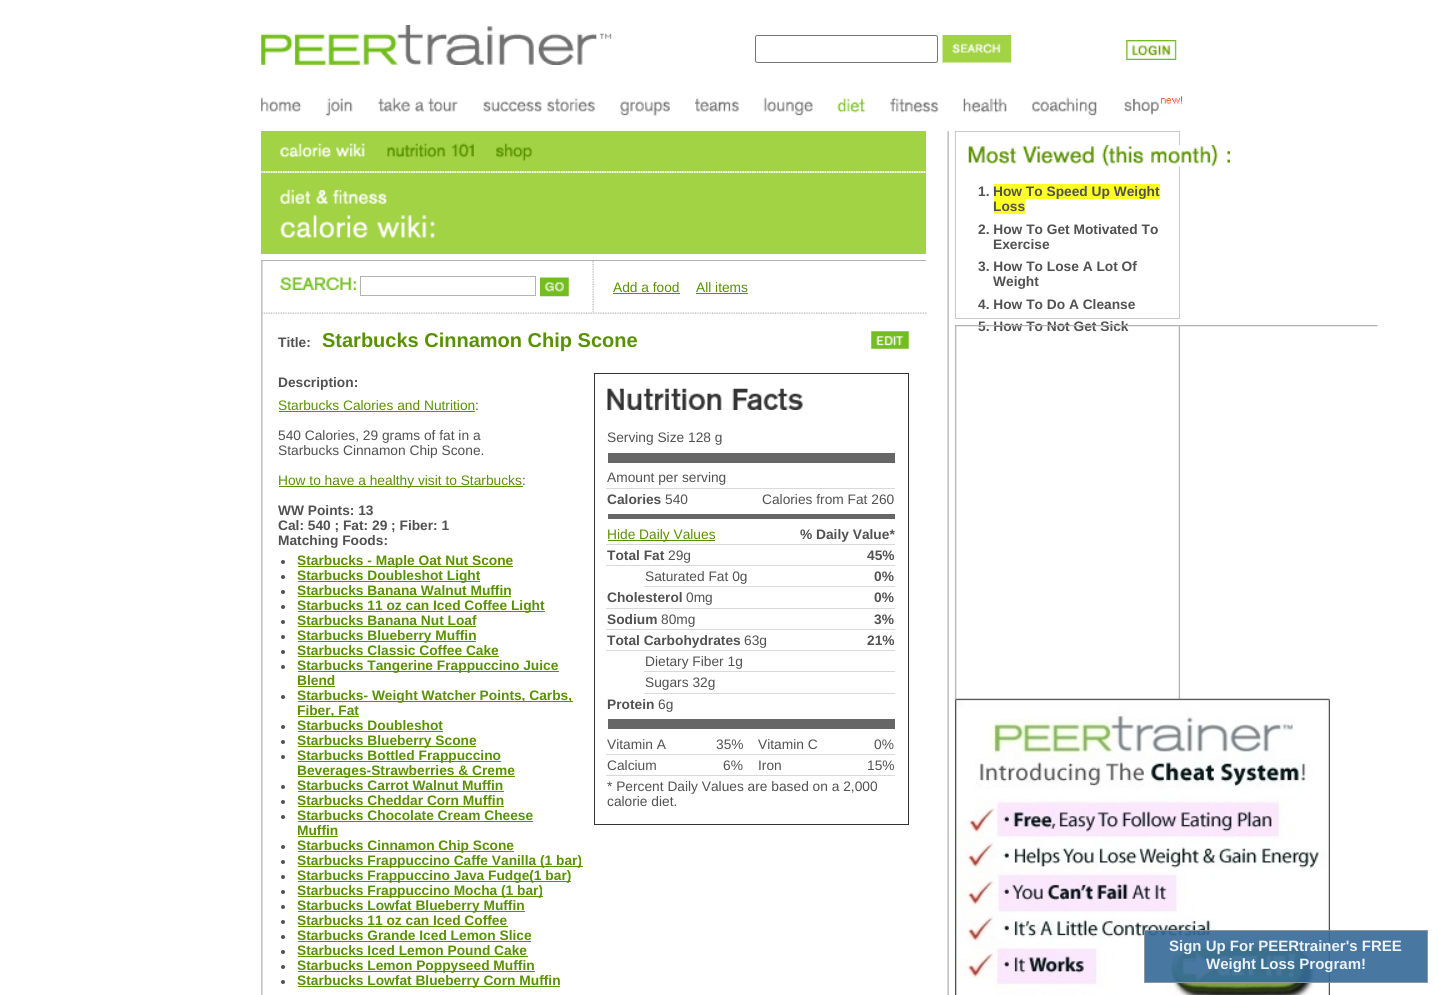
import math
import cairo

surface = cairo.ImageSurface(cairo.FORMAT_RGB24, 1439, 995)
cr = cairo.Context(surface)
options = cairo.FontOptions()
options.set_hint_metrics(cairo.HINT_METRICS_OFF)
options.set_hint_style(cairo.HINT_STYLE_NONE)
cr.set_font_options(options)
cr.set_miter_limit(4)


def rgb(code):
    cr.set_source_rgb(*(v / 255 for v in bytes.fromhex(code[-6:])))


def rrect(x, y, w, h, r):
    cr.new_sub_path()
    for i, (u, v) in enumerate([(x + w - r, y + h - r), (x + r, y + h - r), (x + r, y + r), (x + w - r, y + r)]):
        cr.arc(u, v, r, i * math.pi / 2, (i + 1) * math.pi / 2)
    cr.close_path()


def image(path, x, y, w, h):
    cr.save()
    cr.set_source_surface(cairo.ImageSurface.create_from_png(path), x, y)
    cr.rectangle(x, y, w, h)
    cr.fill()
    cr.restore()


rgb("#ffffff")
cr.paint()
image("img/1.png", 261, 25, 351, 40)
rrect(755.5, 35.5, 182, 27, 2)
rgb("#767676")
cr.set_line_width(1)
cr.stroke()
image("img/2.png", 942, 35, 70, 28)
image("img/3.png", 1126, 40, 51, 20)
image("img/4.png", 261, 97, 41, 15)
image("img/5.png", 326, 98, 27, 19)
image("img/6.png", 377, 97, 81, 15)
image("img/7.png", 482, 98, 113, 14)
image("img/8.png", 620, 101, 50, 16)
image("img/9.png", 695, 98, 44, 14)
image("img/10.png", 763, 97, 50, 19)
image("img/11.png", 837, 98, 28, 15)
image("img/12.png", 890, 97, 49, 16)
image("img/13.png", 963, 98, 44, 15)
image("img/14.png", 1031, 97, 66, 19)
image("img/15.png", 1124, 96, 58, 19)
image("img/16.png", 261, 131, 919, 864)
rgb("#ffffff")
cr.rectangle(955.5, 131.5, 224, 187)
cr.fill_preserve()
rgb("#c9c9c9")
cr.stroke()
image("img/17.png", 968, 145, 262, 22)
for x, y, w, h, color in [
    (994, 184, 166, 15, "#feff25"),
    (994, 199, 31, 15, "#feff25"),
    (955, 319, 225, 6, "#ffffff"),
]:
    rgb(color)
    cr.rectangle(x, y, w, h)
    cr.fill()
image("img/19.png", 955, 698, 375, 297)
rgb("#a2d344")
cr.rectangle(261, 131, 665, 40)
cr.fill()
image("img/20.png", 280, 143, 85, 15)
image("img/21.png", 387, 143, 87, 15)
image("img/22.png", 496, 143, 37, 19)
image("img/23.png", 261, 171, 666, 2)
cr.rectangle(261, 173, 665, 81)
cr.fill()
image("img/24.png", 280, 188, 107, 16)
image("img/25.png", 280, 215, 155, 23)
rgb("#ffffff")
cr.rectangle(261, 254, 2, 6)
cr.fill()
rgb("#b2b2b2")
cr.rectangle(261, 260, 665, 1)
cr.fill()
image("img/26.png", 280, 277, 77, 13)
cr.rectangle(360.5, 276.5, 175, 19)
cr.stroke()
image("img/27.png", 540, 277, 29, 20)
image("img/28.png", 592, 261, 2, 52)
rgb("#599100")
cr.rectangle(613, 293, 67, 1)
cr.fill()
cr.rectangle(696, 293, 52, 1)
cr.fill()
image("img/29.png", 261, 312, 666, 2)
image("img/30.png", 871, 331, 38, 18)
cr.rectangle(279, 411, 196, 1)
cr.fill()
cr.rectangle(279, 486, 244, 1)
cr.fill()
rgb("#515151")
cr.arc(283, 562, 2, 0, 2 * math.pi)
cr.fill()
rgb("#599100")
cr.rectangle(298, 566, 215, 1)
cr.fill()
rgb("#515151")
cr.arc(283, 577, 2, 0, 2 * math.pi)
cr.fill()
rgb("#599100")
cr.rectangle(298, 581, 182, 1)
cr.fill()
rgb("#515151")
cr.arc(283, 592, 2, 0, 2 * math.pi)
cr.fill()
rgb("#599100")
cr.rectangle(298, 596, 213, 1)
cr.fill()
rgb("#515151")
cr.arc(283, 607, 2, 0, 2 * math.pi)
cr.fill()
rgb("#599100")
cr.rectangle(298, 611, 247, 1)
cr.fill()
rgb("#515151")
cr.arc(283, 622, 2, 0, 2 * math.pi)
cr.fill()
rgb("#599100")
cr.rectangle(298, 626, 178, 1)
cr.fill()
rgb("#515151")
cr.arc(283, 637, 2, 0, 2 * math.pi)
cr.fill()
rgb("#599100")
cr.rectangle(298, 641, 178, 1)
cr.fill()
rgb("#515151")
cr.arc(283, 652, 2, 0, 2 * math.pi)
cr.fill()
rgb("#599100")
cr.rectangle(298, 656, 201, 1)
cr.fill()
rgb("#515151")
cr.arc(283, 667, 2, 0, 2 * math.pi)
cr.fill()
rgb("#599100")
cr.rectangle(298, 671, 261, 1)
cr.fill()
cr.rectangle(298, 686, 37, 1)
cr.fill()
rgb("#515151")
cr.arc(283, 697, 2, 0, 2 * math.pi)
cr.fill()
rgb("#599100")
cr.rectangle(298, 701, 275, 1)
cr.fill()
cr.rectangle(298, 716, 61, 1)
cr.fill()
rgb("#515151")
cr.arc(283, 727, 2, 0, 2 * math.pi)
cr.fill()
rgb("#599100")
cr.rectangle(298, 731, 145, 1)
cr.fill()
rgb("#515151")
cr.arc(283, 742, 2, 0, 2 * math.pi)
cr.fill()
rgb("#599100")
cr.rectangle(298, 746, 178, 1)
cr.fill()
rgb("#515151")
cr.arc(283, 757, 2, 0, 2 * math.pi)
cr.fill()
rgb("#599100")
cr.rectangle(298, 761, 203, 1)
cr.fill()
cr.rectangle(298, 776, 217, 1)
cr.fill()
rgb("#515151")
cr.arc(283, 787, 2, 0, 2 * math.pi)
cr.fill()
rgb("#599100")
cr.rectangle(298, 791, 206, 1)
cr.fill()
rgb("#515151")
cr.arc(283, 802, 2, 0, 2 * math.pi)
cr.fill()
rgb("#599100")
cr.rectangle(298, 806, 206, 1)
cr.fill()
rgb("#515151")
cr.arc(283, 817, 2, 0, 2 * math.pi)
cr.fill()
rgb("#599100")
cr.rectangle(298, 821, 235, 1)
cr.fill()
cr.rectangle(298, 836, 40, 1)
cr.fill()
rgb("#515151")
cr.arc(283, 847, 2, 0, 2 * math.pi)
cr.fill()
rgb("#599100")
cr.rectangle(298, 851, 216, 1)
cr.fill()
rgb("#515151")
cr.arc(283, 862, 2, 0, 2 * math.pi)
cr.fill()
rgb("#599100")
cr.rectangle(298, 866, 285, 1)
cr.fill()
rgb("#515151")
cr.arc(283, 877, 2, 0, 2 * math.pi)
cr.fill()
rgb("#599100")
cr.rectangle(298, 881, 273, 1)
cr.fill()
rgb("#515151")
cr.arc(283, 892, 2, 0, 2 * math.pi)
cr.fill()
rgb("#599100")
cr.rectangle(298, 896, 245, 1)
cr.fill()
rgb("#515151")
cr.arc(283, 907, 2, 0, 2 * math.pi)
cr.fill()
rgb("#599100")
cr.rectangle(298, 911, 227, 1)
cr.fill()
rgb("#515151")
cr.arc(283, 922, 2, 0, 2 * math.pi)
cr.fill()
rgb("#599100")
cr.rectangle(298, 926, 210, 1)
cr.fill()
rgb("#515151")
cr.arc(283, 937, 2, 0, 2 * math.pi)
cr.fill()
rgb("#599100")
cr.rectangle(298, 941, 233, 1)
cr.fill()
rgb("#515151")
cr.arc(283, 952, 2, 0, 2 * math.pi)
cr.fill()
rgb("#599100")
cr.rectangle(298, 956, 230, 1)
cr.fill()
rgb("#515151")
cr.arc(283, 967, 2, 0, 2 * math.pi)
cr.fill()
rgb("#599100")
cr.rectangle(298, 971, 237, 1)
cr.fill()
rgb("#515151")
cr.arc(283, 982, 2, 0, 2 * math.pi)
cr.fill()
rgb("#599100")
cr.rectangle(298, 986, 262, 1)
cr.fill()
cr.rectangle(594.5, 373.5, 314, 451)
rgb("#333333")
cr.stroke()
image("img/31.png", 607, 388, 196, 22)
rgb("#666666")
cr.rectangle(608, 453, 287, 10)
cr.fill()
rgb("#d9d9d9")
cr.rectangle(606, 488, 289, 1)
cr.fill()
rgb("#666666")
cr.rectangle(608, 514, 287, 5)
cr.fill()
rgb("#599100")
cr.rectangle(608, 540, 107, 1)
cr.fill()
rgb("#d9d9d9")
cr.rectangle(606, 544, 289, 1)
cr.rectangle(606, 565, 289, 1)
cr.rectangle(644, 586, 251, 1)
cr.rectangle(606, 608, 289, 1)
cr.rectangle(606, 629, 289, 1)
cr.rectangle(606, 650, 289, 1)
cr.rectangle(644, 671, 251, 1)
cr.rectangle(644, 693, 251, 1)
cr.fill()
rgb("#666666")
cr.rectangle(608, 719, 287, 10)
cr.fill()
rgb("#d9d9d9")
cr.rectangle(606, 754, 289, 1)
cr.rectangle(606, 775, 289, 1)
cr.fill()
cr.set_source_rgba(0.204, 0.416, 0.592, 0.9)
cr.rectangle(1144, 930, 284, 53)
cr.fill()
cr.rectangle(1144.5, 930.5, 283, 52)
cr.set_source_rgba(0.6, 0.6, 0.6, 0.9)
cr.stroke()
cr.select_font_face("Liberation Sans", cairo.FONT_SLANT_NORMAL, cairo.FONT_WEIGHT_BOLD)
cr.set_font_size(13.75)
rgb("#515151")
for x, y, s in [
    (978, 196, "1."),
    (993, 196, "How To Speed Up Weight"),
    (993, 211, "Loss"),
    (978, 234, "2. How To Get Motivated To"),
    (993, 249, "Exercise"),
    (978, 271, "3. How To Lose A Lot Of"),
    (993, 286, "Weight"),
    (978, 309, "4. How To Do A Cleanse"),
    (978, 331, "5. How To Not Get Sick"),
]:
    cr.move_to(x, y)
    cr.show_text(s)
image("img/18.png", 955, 325, 423, 2)
cr.select_font_face("Liberation Sans")
rgb("#599100")
cr.move_to(613, 292)
cr.show_text("Add a food")
cr.move_to(696, 292)
cr.show_text("All items")
cr.select_font_face("Liberation Sans", cairo.FONT_SLANT_NORMAL, cairo.FONT_WEIGHT_BOLD)
rgb("#515151")
cr.move_to(278, 347)
cr.show_text("Title:")
cr.set_font_size(20)
rgb("#599100")
cr.move_to(322, 347)
cr.show_text("Starbucks Cinnamon Chip Scone")
cr.set_font_size(13.75)
rgb("#515151")
cr.move_to(278, 387)
cr.show_text("Description:")
cr.select_font_face("Liberation Sans")
rgb("#599100")
cr.move_to(278, 410)
cr.show_text("Starbucks Calories and Nutrition")
rgb("#515151")
for x, y, s in [
    (475, 410, ":"),
    (278, 440, "540 Calories, 29 grams of fat in a"),
    (278, 455, "Starbucks Cinnamon Chip Scone."),
]:
    cr.move_to(x, y)
    cr.show_text(s)
rgb("#599100")
cr.move_to(278, 485)
cr.show_text("How to have a healthy visit to Starbucks")
rgb("#515151")
cr.move_to(522, 485)
cr.show_text(":")
cr.select_font_face("Liberation Sans", cairo.FONT_SLANT_NORMAL, cairo.FONT_WEIGHT_BOLD)
for x, y, s in [
    (278, 515, "WW Points: 13"),
    (278, 530, "Cal: 540 ; Fat: 29 ; Fiber: 1"),
    (278, 545, "Matching Foods:"),
]:
    cr.move_to(x, y)
    cr.show_text(s)
rgb("#599100")
for x, y, s in [
    (297, 565, "Starbucks - Maple Oat Nut Scone"),
    (297, 580, "Starbucks Doubleshot Light"),
    (297, 595, "Starbucks Banana Walnut Muffin"),
    (297, 610, "Starbucks 11 oz can Iced Coffee Light"),
    (297, 625, "Starbucks Banana Nut Loaf"),
    (297, 640, "Starbucks Blueberry Muffin"),
    (297, 655, "Starbucks Classic Coffee Cake"),
    (297, 670, "Starbucks Tangerine Frappuccino Juice"),
    (297, 685, "Blend"),
    (297, 700, "Starbucks- Weight Watcher Points, Carbs,"),
    (297, 715, "Fiber, Fat"),
    (297, 730, "Starbucks Doubleshot"),
    (297, 745, "Starbucks Blueberry Scone"),
    (297, 760, "Starbucks Bottled Frappuccino"),
    (297, 775, "Beverages-Strawberries & Creme"),
    (297, 790, "Starbucks Carrot Walnut Muffin"),
    (297, 805, "Starbucks Cheddar Corn Muffin"),
    (297, 820, "Starbucks Chocolate Cream Cheese"),
    (297, 835, "Muffin"),
    (297, 850, "Starbucks Cinnamon Chip Scone"),
    (297, 865, "Starbucks Frappuccino Caffe Vanilla (1 bar)"),
    (297, 880, "Starbucks Frappuccino Java Fudge(1 bar)"),
    (297, 895, "Starbucks Frappuccino Mocha (1 bar)"),
    (297, 910, "Starbucks Lowfat Blueberry Muffin"),
    (297, 925, "Starbucks 11 oz can Iced Coffee"),
    (297, 940, "Starbucks Grande Iced Lemon Slice"),
    (297, 955, "Starbucks Iced Lemon Pound Cake"),
    (297, 970, "Starbucks Lemon Poppyseed Muffin"),
    (297, 985, "Starbucks Lowfat Blueberry Corn Muffin"),
]:
    cr.move_to(x, y)
    cr.show_text(s)
cr.select_font_face("Liberation Sans")
rgb("#515151")
cr.move_to(607, 442)
cr.show_text("Serving Size 128 g")
cr.move_to(607, 482)
cr.show_text("Amount per serving")
cr.select_font_face("Liberation Sans", cairo.FONT_SLANT_NORMAL, cairo.FONT_WEIGHT_BOLD)
cr.move_to(607, 504)
cr.show_text("Calories")
cr.select_font_face("Liberation Sans")
cr.move_to(665, 504)
cr.show_text("540")
cr.move_to(762, 504)
cr.show_text("Calories from Fat 260")
rgb("#599100")
cr.move_to(607, 539)
cr.show_text("Hide Daily Values")
cr.select_font_face("Liberation Sans", cairo.FONT_SLANT_NORMAL, cairo.FONT_WEIGHT_BOLD)
rgb("#515151")
cr.move_to(800, 539)
cr.show_text("% Daily Value*")
cr.move_to(607, 560)
cr.show_text("Total Fat")
cr.select_font_face("Liberation Sans")
cr.move_to(668, 560)
cr.show_text("29g")
cr.select_font_face("Liberation Sans", cairo.FONT_SLANT_NORMAL, cairo.FONT_WEIGHT_BOLD)
cr.move_to(867, 560)
cr.show_text("45%")
cr.select_font_face("Liberation Sans")
cr.move_to(645, 581)
cr.show_text("Saturated Fat 0g")
cr.select_font_face("Liberation Sans", cairo.FONT_SLANT_NORMAL, cairo.FONT_WEIGHT_BOLD)
cr.move_to(874, 581)
cr.show_text("0%")
cr.move_to(607, 602)
cr.show_text("Cholesterol")
cr.select_font_face("Liberation Sans")
cr.move_to(686, 602)
cr.show_text("0mg")
cr.select_font_face("Liberation Sans", cairo.FONT_SLANT_NORMAL, cairo.FONT_WEIGHT_BOLD)
cr.move_to(874, 602)
cr.show_text("0%")
cr.move_to(607, 624)
cr.show_text("Sodium")
cr.select_font_face("Liberation Sans")
cr.move_to(661, 624)
cr.show_text("80mg")
cr.select_font_face("Liberation Sans", cairo.FONT_SLANT_NORMAL, cairo.FONT_WEIGHT_BOLD)
cr.move_to(874, 624)
cr.show_text("3%")
cr.move_to(607, 645)
cr.show_text("Total Carbohydrates")
cr.select_font_face("Liberation Sans")
cr.move_to(744, 645)
cr.show_text("63g")
cr.select_font_face("Liberation Sans", cairo.FONT_SLANT_NORMAL, cairo.FONT_WEIGHT_BOLD)
cr.move_to(867, 645)
cr.show_text("21%")
cr.select_font_face("Liberation Sans")
cr.move_to(645, 666)
cr.show_text("Dietary Fiber 1g")
cr.move_to(645, 687)
cr.show_text("Sugars 32g")
cr.select_font_face("Liberation Sans", cairo.FONT_SLANT_NORMAL, cairo.FONT_WEIGHT_BOLD)
cr.move_to(607, 709)
cr.show_text("Protein")
cr.select_font_face("Liberation Sans")
for x, y, s in [
    (658, 709, "6g"),
    (607, 749, "Vitamin A"),
    (716, 749, "35%"),
    (758, 749, "Vitamin C"),
    (874, 749, "0%"),
    (607, 770, "Calcium"),
    (723, 770, "6%"),
    (758, 770, "Iron"),
    (867, 770, "15%"),
    (607, 791, "* Percent Daily Values are based on a 2,000"),
    (607, 806, "calorie diet."),
]:
    cr.move_to(x, y)
    cr.show_text(s)
cr.select_font_face("Liberation Sans", cairo.FONT_SLANT_NORMAL, cairo.FONT_WEIGHT_BOLD)
cr.set_font_size(15)
rgb("#ecf1f5")
cr.move_to(1169, 951)
cr.show_text("Sign Up For PEERtrainer's FREE")
cr.move_to(1206, 969)
cr.show_text("Weight Loss Program!")
surface.write_to_png("page.png")
